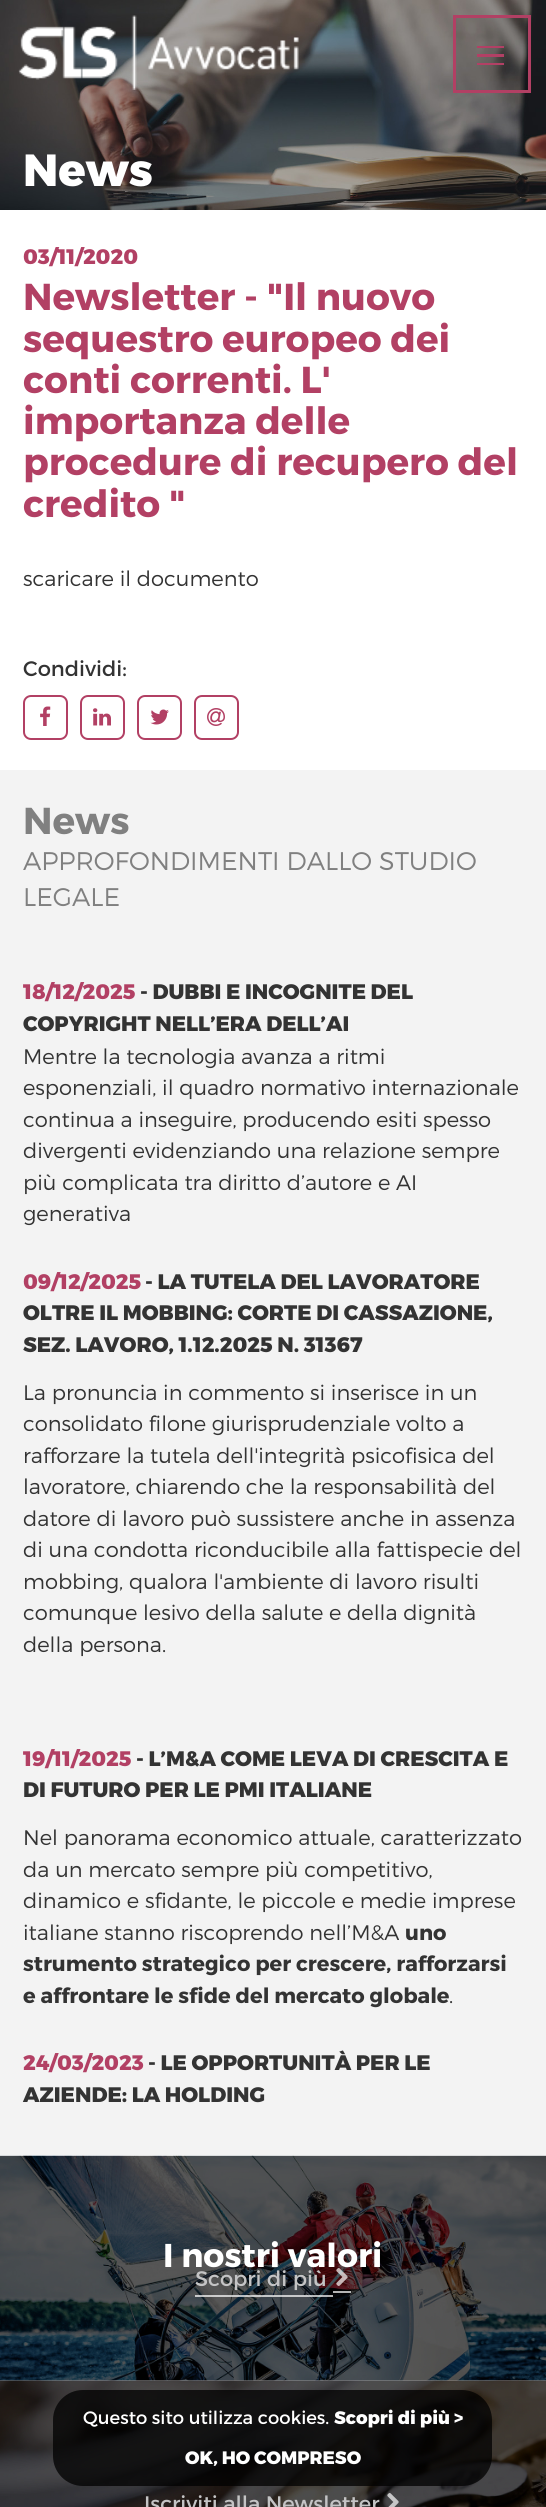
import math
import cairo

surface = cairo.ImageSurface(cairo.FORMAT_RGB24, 546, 2507)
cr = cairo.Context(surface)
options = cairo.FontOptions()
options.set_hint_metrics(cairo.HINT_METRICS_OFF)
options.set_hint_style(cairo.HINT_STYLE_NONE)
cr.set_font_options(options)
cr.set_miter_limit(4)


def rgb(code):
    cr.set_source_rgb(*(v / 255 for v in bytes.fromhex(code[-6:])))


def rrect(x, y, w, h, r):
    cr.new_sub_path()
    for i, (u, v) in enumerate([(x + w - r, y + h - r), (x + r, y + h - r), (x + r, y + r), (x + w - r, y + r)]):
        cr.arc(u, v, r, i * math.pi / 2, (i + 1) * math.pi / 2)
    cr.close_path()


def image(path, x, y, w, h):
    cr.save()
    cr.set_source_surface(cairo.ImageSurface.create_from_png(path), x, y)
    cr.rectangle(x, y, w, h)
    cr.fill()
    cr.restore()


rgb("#ffffff")
cr.paint()
rgb("#808080")
cr.rectangle(0, 2380, 546, 1)
cr.fill()
image("img/2.png", 0, 0, 546, 210)
cr.set_source_rgba(0, 0, 0, 0.1)
cr.rectangle(454.5, 16.5, 75, 75)
cr.fill_preserve()
rgb("#b24064")
cr.set_line_width(3)
cr.stroke()
for x, y, w, h, color in [
    (477, 46, 27, 2, "#b24065"),
    (477, 54, 27, 3, "#b24065"),
    (477, 63, 27, 2, "#b24065"),
]:
    rgb(color)
    cr.rectangle(x, y, w, h)
    cr.fill()
image("img/1.png", 18, 15, 281, 75)
rrect(24, 696, 43, 43, 7)
rgb("#b24064")
cr.set_line_width(2)
cr.stroke()
image("img/3.png", 40, 706, 11, 20)
rrect(81, 696, 43, 43, 7)
cr.stroke()
image("img/4.png", 93, 708, 18, 18)
rrect(138, 696, 43, 43, 7)
cr.stroke()
image("img/5.png", 150, 709, 19, 16)
rrect(195, 696, 43, 43, 7)
cr.stroke()
image("img/6.png", 207, 708, 18, 18)
rgb("#f3f3f3")
cr.rectangle(0, 770, 546, 1386)
cr.fill()
image("img/7.png", 0, 2155, 546, 226)
cr.set_source_rgba(1, 1, 1, 0.7)
cr.rectangle(195, 2295, 138, 2)
cr.fill()
cr.rectangle(333, 2291, 18, 2)
cr.fill()
image("img/8.png", 336, 2268, 12, 18)
image("img/9.png", 0, 2380, 546, 127)
image("img/10.png", 387, 2493, 12, 14)
cr.set_source_rgba(0, 0, 0, 0.75)
rrect(53, 2390, 439, 96, 30)
cr.fill()
cr.select_font_face("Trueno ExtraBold")
cr.set_font_size(45)
rgb("#ffffff")
cr.move_to(23, 186)
cr.show_text("News")
cr.set_font_size(21)
rgb("#b24064")
cr.move_to(23, 264)
cr.show_text("03/11/2020")
cr.select_font_face("Trueno", cairo.FONT_SLANT_NORMAL, cairo.FONT_WEIGHT_BOLD)
cr.set_font_size(37.5)
for x, y, s in [
    (23, 310, "Newsletter - \"Il nuovo"),
    (23, 352, "sequestro europeo dei"),
    (23, 393, "conti correnti. L'"),
    (23, 434, "importanza delle"),
    (23, 475, "procedure di recupero del"),
    (23, 517, "credito \""),
]:
    cr.move_to(x, y)
    cr.show_text(s)
cr.select_font_face("Trueno Light")
cr.set_font_size(21)
rgb("#333333")
cr.move_to(23, 586)
cr.show_text("scaricare il documento")
cr.select_font_face("Trueno")
cr.move_to(23, 676)
cr.show_text("Condividi:")
cr.select_font_face("Trueno", cairo.FONT_SLANT_NORMAL, cairo.FONT_WEIGHT_BOLD)
cr.set_font_size(37.5)
rgb("#808080")
cr.move_to(23, 834)
cr.show_text("News")
cr.select_font_face("Trueno Light")
cr.set_font_size(25.5)
cr.move_to(23, 870)
cr.show_text("APPROFONDIMENTI DALLO STUDIO")
cr.move_to(23, 906)
cr.show_text("LEGALE")
cr.select_font_face("Trueno ExtraBold")
cr.set_font_size(21)
rgb("#b24064")
cr.move_to(23, 999)
cr.show_text("18/12/2025")
rgb("#333333")
cr.move_to(140, 999)
cr.show_text("- DUBBI E INCOGNITE DEL")
cr.move_to(23, 1031)
cr.show_text("COPYRIGHT NELL’ERA DELL’AI")
cr.select_font_face("Trueno Light")
for x, y, s in [
    (23, 1064, "Mentre la tecnologia avanza a ritmi"),
    (23, 1095, "esponenziali, il quadro normativo internazionale"),
    (23, 1127, "continua a inseguire, producendo esiti spesso"),
    (23, 1158, "divergenti evidenziando una relazione sempre"),
    (23, 1190, "più complicata tra diritto d’autore e AI"),
    (23, 1221, "generativa"),
]:
    cr.move_to(x, y)
    cr.show_text(s)
cr.select_font_face("Trueno ExtraBold")
rgb("#b24064")
cr.move_to(23, 1289)
cr.show_text("09/12/2025")
rgb("#333333")
for x, y, s in [
    (145, 1289, "- LA TUTELA DEL LAVORATORE"),
    (23, 1320, "OLTRE IL MOBBING: CORTE DI CASSAZIONE,"),
    (23, 1352, "SEZ. LAVORO, 1.12.2025 N. 31367"),
]:
    cr.move_to(x, y)
    cr.show_text(s)
cr.select_font_face("Trueno Light")
for x, y, s in [
    (23, 1400, "La pronuncia in commento si inserisce in un"),
    (23, 1431, "consolidato filone giurisprudenziale volto a"),
    (23, 1463, "rafforzare la tutela dell'integrità psicofisica del"),
    (23, 1494, "lavoratore, chiarendo che la responsabilità del"),
    (23, 1526, "datore di lavoro può sussistere anche in assenza"),
    (23, 1557, "di una condotta riconducibile alla fattispecie del"),
    (23, 1589, "mobbing, qualora l'ambiente di lavoro risulti"),
    (23, 1620, "comunque lesivo della salute e della dignità"),
    (23, 1652, "della persona."),
]:
    cr.move_to(x, y)
    cr.show_text(s)
cr.select_font_face("Trueno ExtraBold")
rgb("#b24064")
cr.move_to(23, 1766)
cr.show_text("19/11/2025")
rgb("#333333")
cr.move_to(136, 1766)
cr.show_text("- L’M&A COME LEVA DI CRESCITA E")
cr.move_to(23, 1797)
cr.show_text("DI FUTURO PER LE PMI ITALIANE")
cr.select_font_face("Trueno Light")
for x, y, s in [
    (23, 1845, "Nel panorama economico attuale, caratterizzato"),
    (23, 1877, "da un mercato sempre più competitivo,"),
    (23, 1908, "dinamico e sfidante, le piccole e medie imprese"),
    (23, 1940, "italiane stanno riscoprendo nell’M&A"),
]:
    cr.move_to(x, y)
    cr.show_text(s)
cr.select_font_face("Trueno", cairo.FONT_SLANT_NORMAL, cairo.FONT_WEIGHT_BOLD)
for x, y, s in [
    (405, 1940, "uno"),
    (23, 1971, "strumento strategico per crescere, rafforzarsi"),
    (23, 2003, "e affrontare le sfide del mercato globale"),
]:
    cr.move_to(x, y)
    cr.show_text(s)
cr.select_font_face("Trueno Light")
cr.move_to(449, 2003)
cr.show_text(".")
cr.select_font_face("Trueno ExtraBold")
rgb("#b24064")
cr.move_to(23, 2070)
cr.show_text("24/03/2023")
rgb("#333333")
cr.move_to(148, 2070)
cr.show_text("- LE OPPORTUNITÀ PER LE")
cr.move_to(23, 2102)
cr.show_text("AZIENDE: LA HOLDING")
cr.select_font_face("Trueno", cairo.FONT_SLANT_NORMAL, cairo.FONT_WEIGHT_BOLD)
cr.set_font_size(33)
rgb("#ffffff")
cr.move_to(163, 2267)
cr.show_text("I nostri valori")
cr.select_font_face("Trueno")
cr.set_font_size(21)
rgb("#c4c4c5")
cr.move_to(195, 2286)
cr.show_text("Scopri di più")
cr.move_to(144, 2511)
cr.show_text("Iscriviti alla Newsletter")
cr.set_font_size(18)
rgb("#ffffff")
cr.move_to(83, 2424)
cr.show_text("Questo sito utilizza cookies.")
cr.select_font_face("Trueno ExtraBold")
cr.move_to(334, 2424)
cr.show_text("Scopri di più >")
cr.move_to(185, 2464)
cr.show_text("OK, HO COMPRESO")
surface.write_to_png("page.png")
